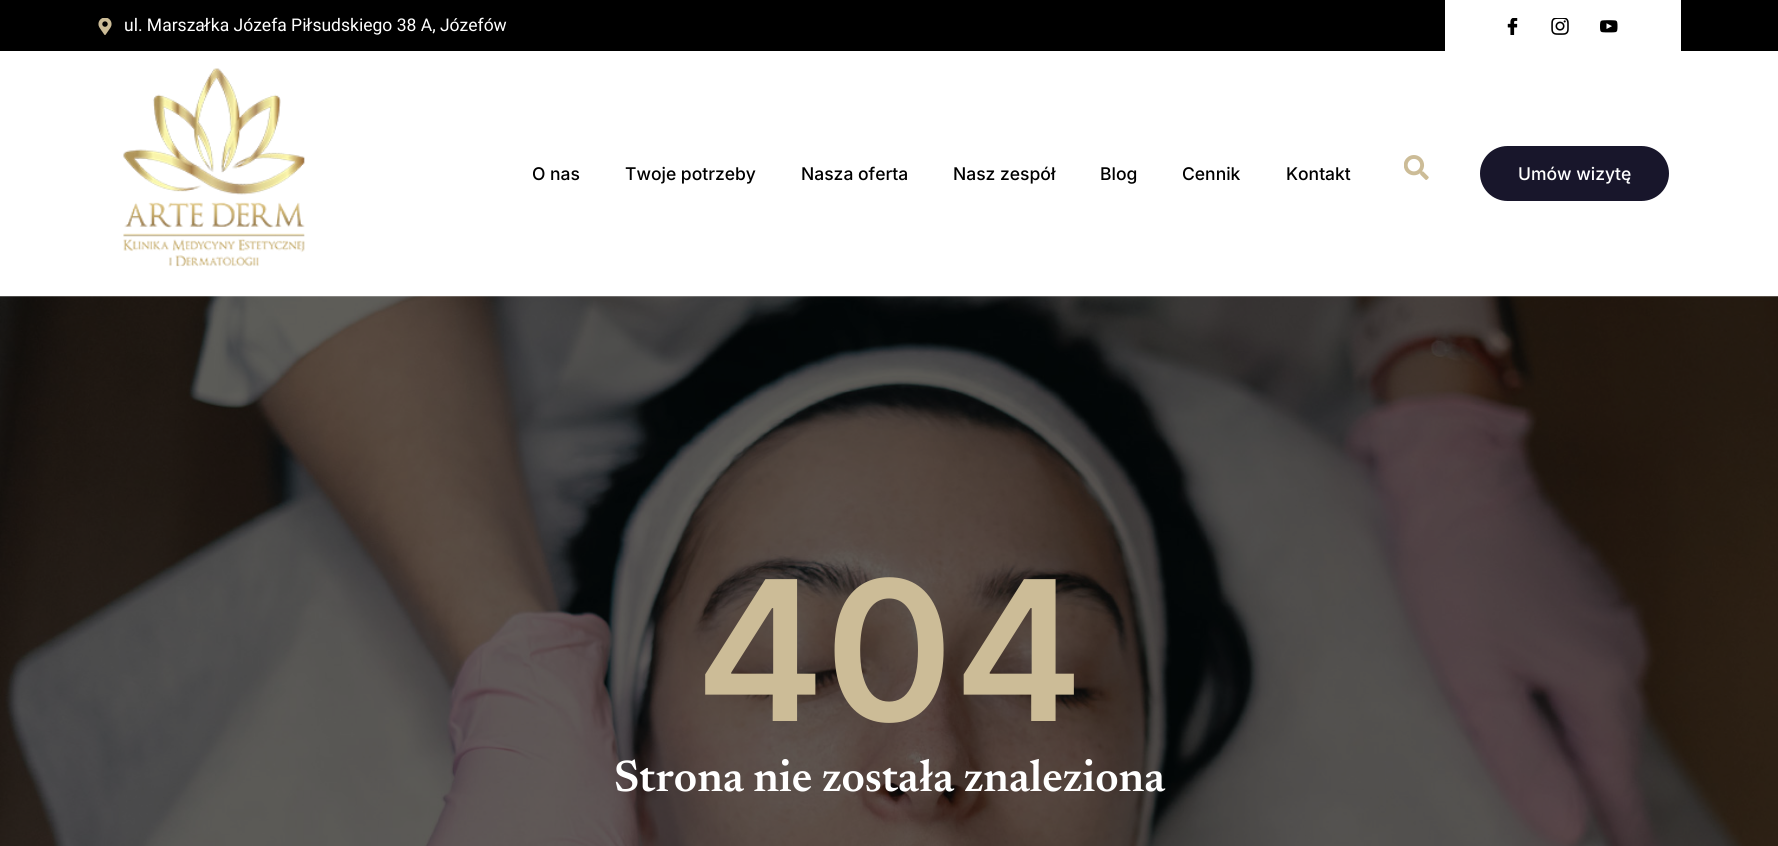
import math
import cairo

surface = cairo.ImageSurface(cairo.FORMAT_RGB24, 1778, 846)
cr = cairo.Context(surface)
options = cairo.FontOptions()
options.set_hint_metrics(cairo.HINT_METRICS_OFF)
options.set_hint_style(cairo.HINT_STYLE_NONE)
cr.set_font_options(options)
cr.set_miter_limit(4)


def rgb(code):
    cr.set_source_rgb(*(v / 255 for v in bytes.fromhex(code[-6:])))


def rrect(x, y, w, h, r):
    cr.new_sub_path()
    for i, (u, v) in enumerate([(x + w - r, y + h - r), (x + r, y + h - r), (x + r, y + r), (x + w - r, y + r)]):
        cr.arc(u, v, r, i * math.pi / 2, (i + 1) * math.pi / 2)
    cr.close_path()


def image(path, x, y, w, h):
    cr.save()
    cr.set_source_surface(cairo.ImageSurface.create_from_png(path), x, y)
    cr.rectangle(x, y, w, h)
    cr.fill()
    cr.restore()


rgb("#ffffff")
cr.paint()
rgb("#000000")
cr.rectangle(0, 0, 1778, 51)
cr.fill()
image("img/1.png", 98, 18, 14, 17)
rgb("#ffffff")
cr.rectangle(1445, 0, 236, 51)
cr.fill()
image("img/2.png", 1507, 18, 11, 17)
image("img/3.png", 1551, 18, 18, 17)
image("img/4.png", 1600, 20, 18, 13)
image("img/5.png", 123, 68, 182, 199)
image("img/6.png", 1404, 155, 25, 25)
rgb("#18162b")
rrect(1480, 146, 189, 55, 27.5)
cr.fill()
image("img/7.png", 0, 296, 1778, 550)
cr.select_font_face("Heebo")
cr.set_font_size(17.5)
rgb("#ffffff")
cr.move_to(124, 31)
cr.show_text("ul. Marszałka Józefa Piłsudskiego 38 A, Józefów")
cr.select_font_face("Inter Medium")
rgb("#000000")
for x, y, s in [
    (532, 180, "O nas"),
    (625, 180, "Twoje potrzeby"),
    (801, 180, "Nasza oferta"),
    (953, 180, "Nasz zespół"),
    (1100, 180, "Blog"),
    (1182, 180, "Cennik"),
    (1286, 180, "Kontakt"),
]:
    cr.move_to(x, y)
    cr.show_text(s)
rgb("#ffffff")
cr.move_to(1518, 180)
cr.show_text("Umów wizytę")
cr.select_font_face("Inter SemiBold")
cr.set_font_size(195)
rgb("#ccbc97")
cr.move_to(695, 721)
cr.show_text("404")
cr.select_font_face("Newsreader SemiBold")
cr.set_font_size(45)
rgb("#ffffff")
cr.move_to(614, 791)
cr.show_text("Strona nie została znaleziona")
surface.write_to_png("page.png")
